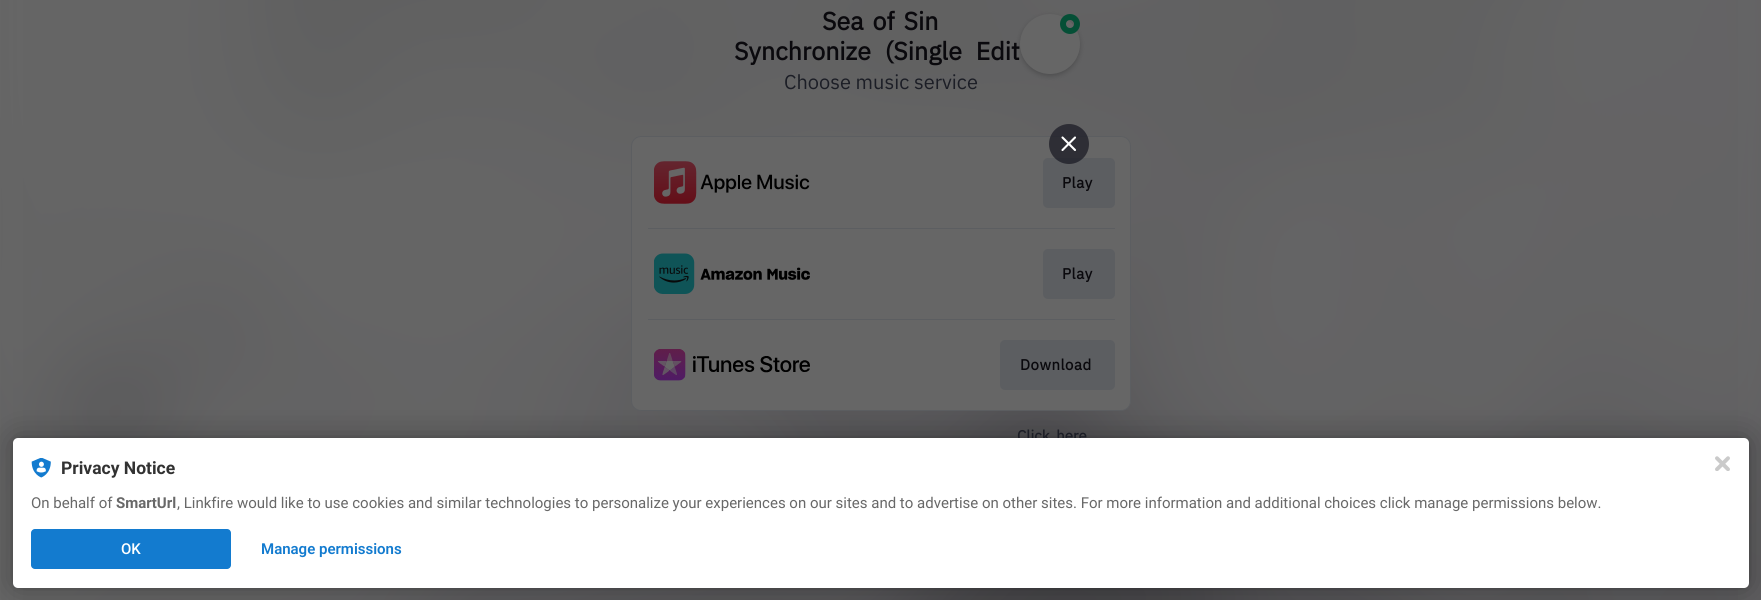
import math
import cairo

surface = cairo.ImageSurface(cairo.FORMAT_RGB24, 1761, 600)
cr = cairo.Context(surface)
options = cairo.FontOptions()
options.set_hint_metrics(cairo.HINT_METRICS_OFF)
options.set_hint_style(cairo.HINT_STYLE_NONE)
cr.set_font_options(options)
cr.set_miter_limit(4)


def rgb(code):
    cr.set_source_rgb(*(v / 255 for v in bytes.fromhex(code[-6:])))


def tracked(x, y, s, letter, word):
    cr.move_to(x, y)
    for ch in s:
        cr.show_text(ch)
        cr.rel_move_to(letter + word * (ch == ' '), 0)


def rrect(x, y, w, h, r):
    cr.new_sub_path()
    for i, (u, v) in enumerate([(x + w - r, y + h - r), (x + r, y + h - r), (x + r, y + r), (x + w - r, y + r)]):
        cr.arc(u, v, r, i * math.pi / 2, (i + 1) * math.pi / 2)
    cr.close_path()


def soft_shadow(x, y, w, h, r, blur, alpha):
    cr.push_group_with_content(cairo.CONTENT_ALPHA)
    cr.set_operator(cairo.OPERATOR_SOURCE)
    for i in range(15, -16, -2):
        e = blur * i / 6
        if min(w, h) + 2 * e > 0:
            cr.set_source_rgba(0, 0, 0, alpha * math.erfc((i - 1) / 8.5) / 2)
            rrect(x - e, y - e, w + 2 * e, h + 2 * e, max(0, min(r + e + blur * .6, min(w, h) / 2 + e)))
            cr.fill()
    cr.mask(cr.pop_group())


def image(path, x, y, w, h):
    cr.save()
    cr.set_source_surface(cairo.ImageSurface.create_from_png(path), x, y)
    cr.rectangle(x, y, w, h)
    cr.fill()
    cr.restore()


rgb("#666666")
cr.paint()
image("img/1.png", 0, 0, 1761, 600)
rgb("#000000")
soft_shadow(1020, 16, 60, 60, 30, 2.5, 0.2)
rgb("#666666")
cr.arc(1050, 44, 30, 0, 2 * math.pi)
cr.fill()
cr.arc(1070, 24, 7, 0, 2 * math.pi)
rgb("#054f36")
cr.set_line_width(6)
cr.stroke()
rgb("#666666")
rrect(631.5, 136.5, 499, 274, 9.5)
cr.fill_preserve()
rgb("#5c5e61")
cr.set_line_width(1)
cr.stroke()
rrect(1043, 158, 72, 50, 5)
cr.fill()
cr.set_source_rgba(0.094, 0.09, 0.129, 0.7)
cr.arc(1069, 144, 20, 0, 2 * math.pi)
cr.fill()
cr.new_path()
cr.move_to(1062.5, 137.5)
cr.line_to(1075, 150)
cr.move_to(1062.5, 150)
cr.line_to(1075, 137.5)
rgb("#ffffff")
cr.set_line_width(2.1)
cr.set_line_cap(cairo.LINE_CAP_ROUND)
cr.set_line_join(cairo.LINE_JOIN_ROUND)
cr.stroke()
image("img/2.png", 654, 161, 156, 43)
rgb("#5c5e61")
cr.rectangle(648, 228, 467, 1)
cr.fill()
image("img/3.png", 654, 253, 156, 41)
rrect(1043, 249, 72, 50, 5)
cr.fill()
cr.rectangle(648, 319, 467, 1)
cr.fill()
image("img/4.png", 654, 349, 156, 32)
rrect(1000, 340, 115, 50, 5)
cr.fill()
rgb("#000000")
soft_shadow(13, 438, 1736, 150, 5, 2.5, 0.12)
soft_shadow(13, 438, 1736, 150, 5, 15, 0.3)
cr.select_font_face("IBM Plex Sans", cairo.FONT_SLANT_NORMAL, cairo.FONT_WEIGHT_BOLD)
cr.set_font_size(25)
rgb("#0a090d")
tracked(822, 30, "Sea of Sin", 0, 3)
tracked(734, 60, "Synchronize (Single Edit", 0, 8)
cr.select_font_face("IBM Plex Sans")
cr.set_font_size(20)
rgb("#1c1e26")
cr.move_to(784, 89)
cr.show_text("Choose music service")
cr.select_font_face("IBM Plex Sans", cairo.FONT_SLANT_NORMAL, cairo.FONT_WEIGHT_BOLD)
cr.set_font_size(15)
rgb("#0a090d")
for x, y, s in [
    (1062, 188, "Play"),
    (1062, 279, "Play"),
    (1020, 370, "Download"),
]:
    tracked(x, y, s, 0.5, 0)
rgb("#1c1e26")
tracked(1017, 441, "Click here", 0, 3)
rgb("#ffffff")
rrect(13, 438, 1736, 150, 5)
cr.fill()
image("img/5.png", 31, 458, 20, 20)
cr.select_font_face("Roboto", cairo.FONT_SLANT_NORMAL, cairo.FONT_WEIGHT_BOLD)
cr.set_font_size(17.5)
rgb("#323232")
cr.move_to(61, 474)
cr.show_text("Privacy Notice")
cr.select_font_face("Roboto")
cr.set_font_size(15)
rgb("#686868")
cr.move_to(31, 508)
cr.show_text("On behalf of")
cr.select_font_face("Roboto", cairo.FONT_SLANT_NORMAL, cairo.FONT_WEIGHT_BOLD)
cr.move_to(116, 508)
cr.show_text("SmartUrl")
cr.select_font_face("Roboto")
cr.move_to(177, 508)
cr.show_text(", Linkfire would like to use cookies and similar technologies to personalize your experiences on our sites and to advertise on other sites. For more information and additional choices click manage permissions below.")
rgb("#137bcf")
rrect(31, 529, 200, 40, 4)
cr.fill()
cr.select_font_face("Roboto Medium")
rgb("#ffffff")
cr.move_to(121, 554)
cr.show_text("OK")
cr.select_font_face("Roboto SemiBold")
rgb("#137bcf")
cr.move_to(261, 554)
cr.show_text("Manage permissions")
image("img/6.png", 1715, 456, 15, 15)
surface.write_to_png("page.png")
